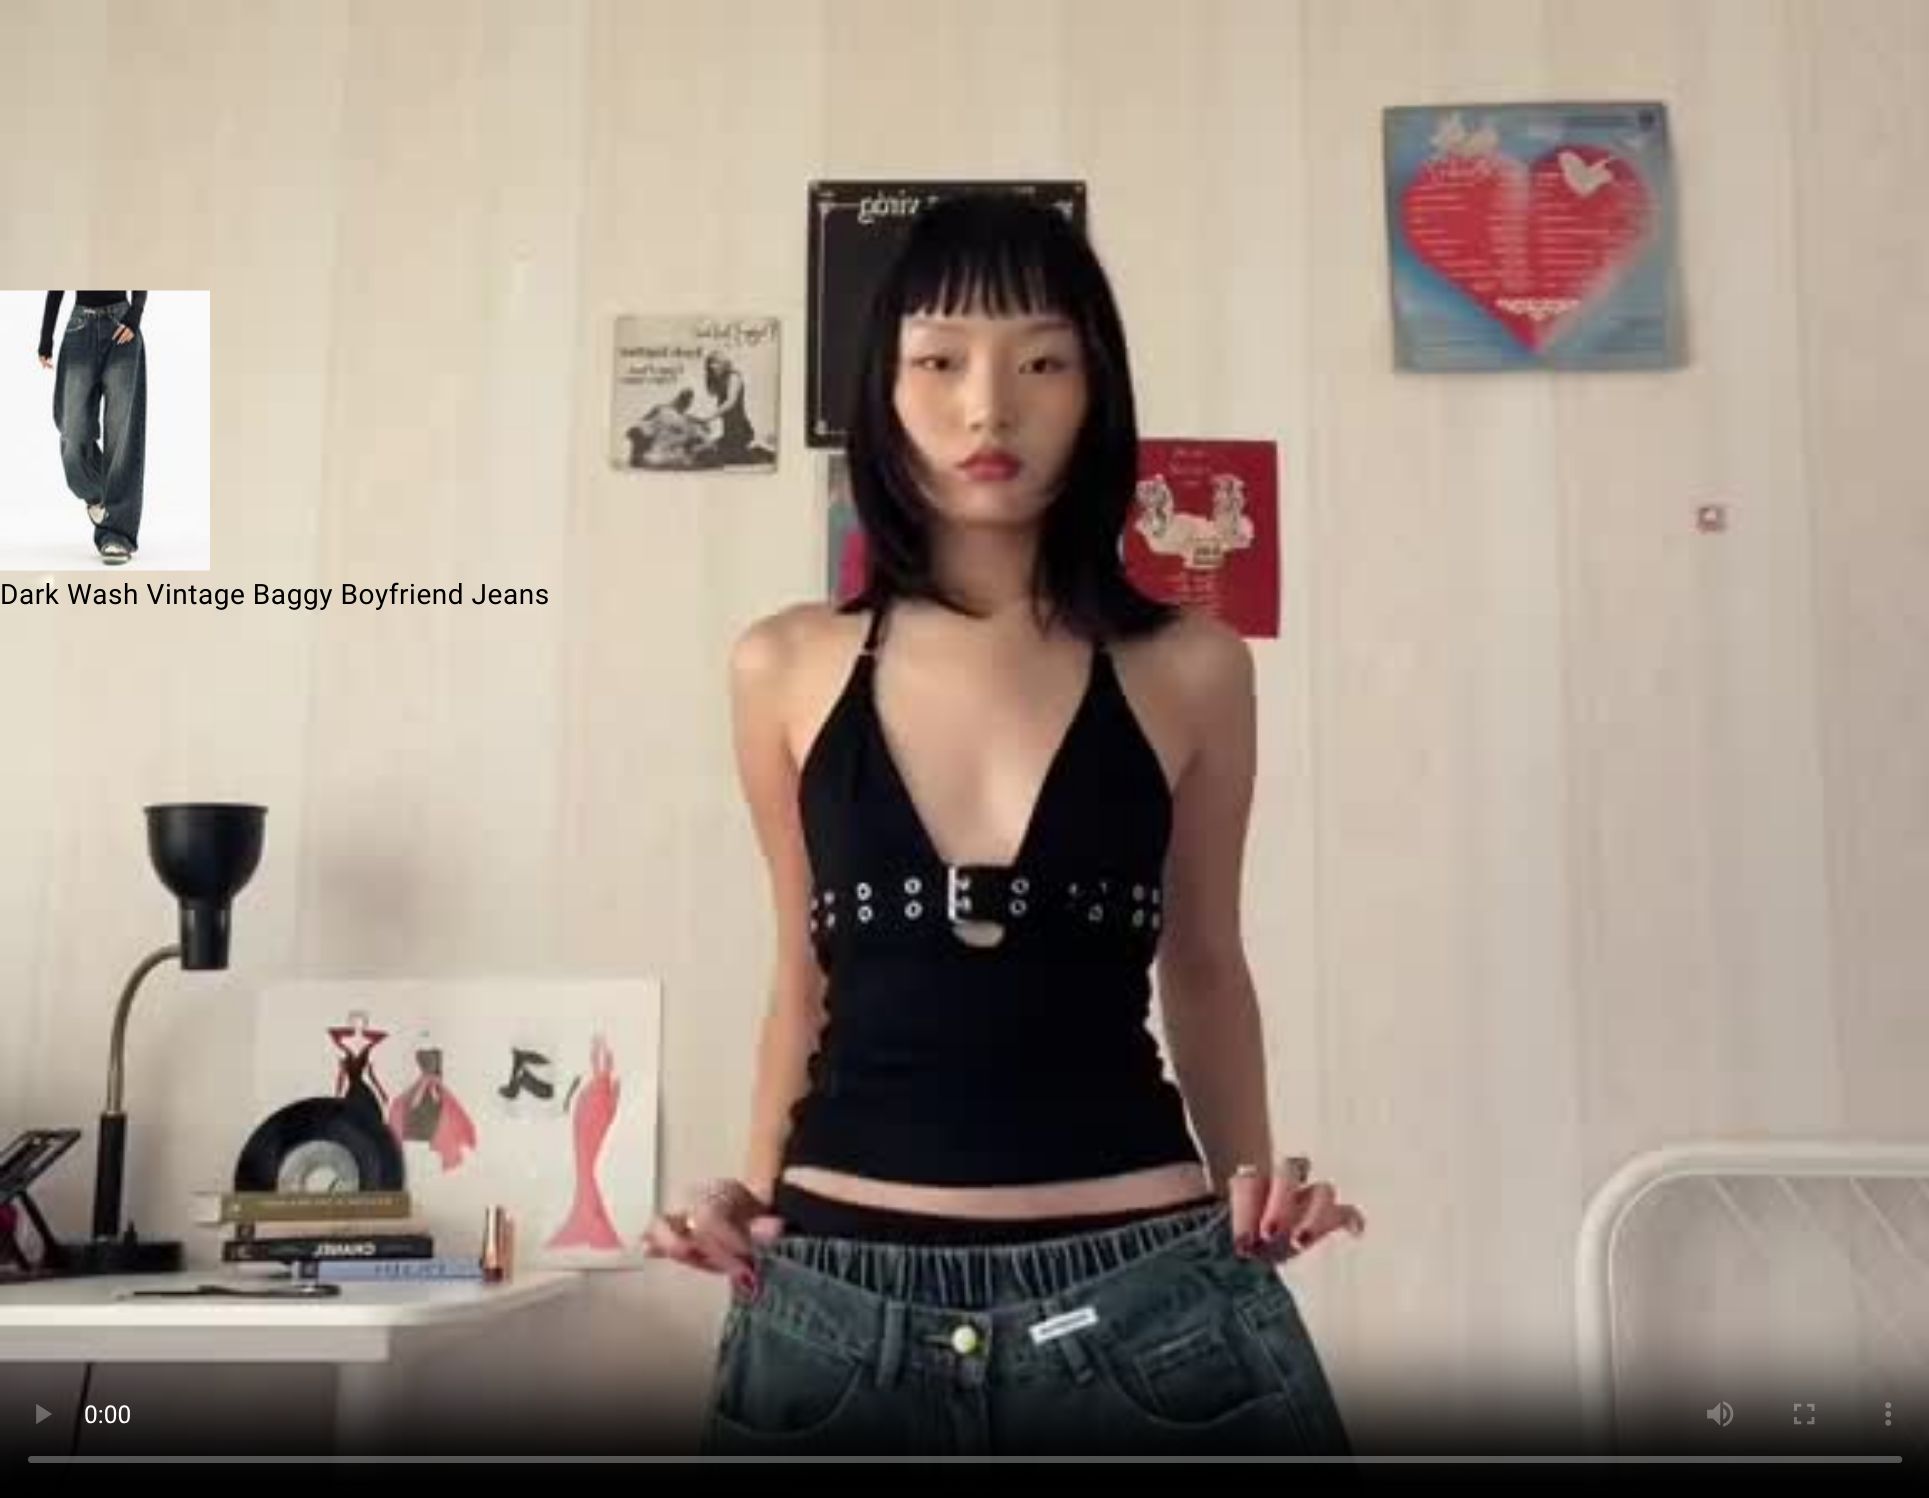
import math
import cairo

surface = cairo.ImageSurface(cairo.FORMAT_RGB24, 1929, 1498)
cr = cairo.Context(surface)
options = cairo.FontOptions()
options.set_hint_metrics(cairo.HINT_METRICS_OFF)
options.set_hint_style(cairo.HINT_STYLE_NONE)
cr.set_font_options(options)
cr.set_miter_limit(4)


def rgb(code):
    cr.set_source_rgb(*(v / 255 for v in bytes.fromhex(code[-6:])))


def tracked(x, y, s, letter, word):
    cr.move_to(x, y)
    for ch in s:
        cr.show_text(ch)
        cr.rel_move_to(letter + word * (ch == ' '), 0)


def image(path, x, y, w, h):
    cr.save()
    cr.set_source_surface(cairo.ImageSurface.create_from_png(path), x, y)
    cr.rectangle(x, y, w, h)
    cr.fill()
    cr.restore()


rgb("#ffffff")
cr.paint()
image("img/1.png", 0, 0, 1929, 1498)
image("img/2.png", 0, 290, 210, 281)
cr.select_font_face("Roboto")
cr.set_font_size(28)
rgb("#000000")
tracked(0, 604, "Dark Wash Vintage Baggy Boyfriend Jeans", 0.55, 0)
surface.write_to_png("page.png")
